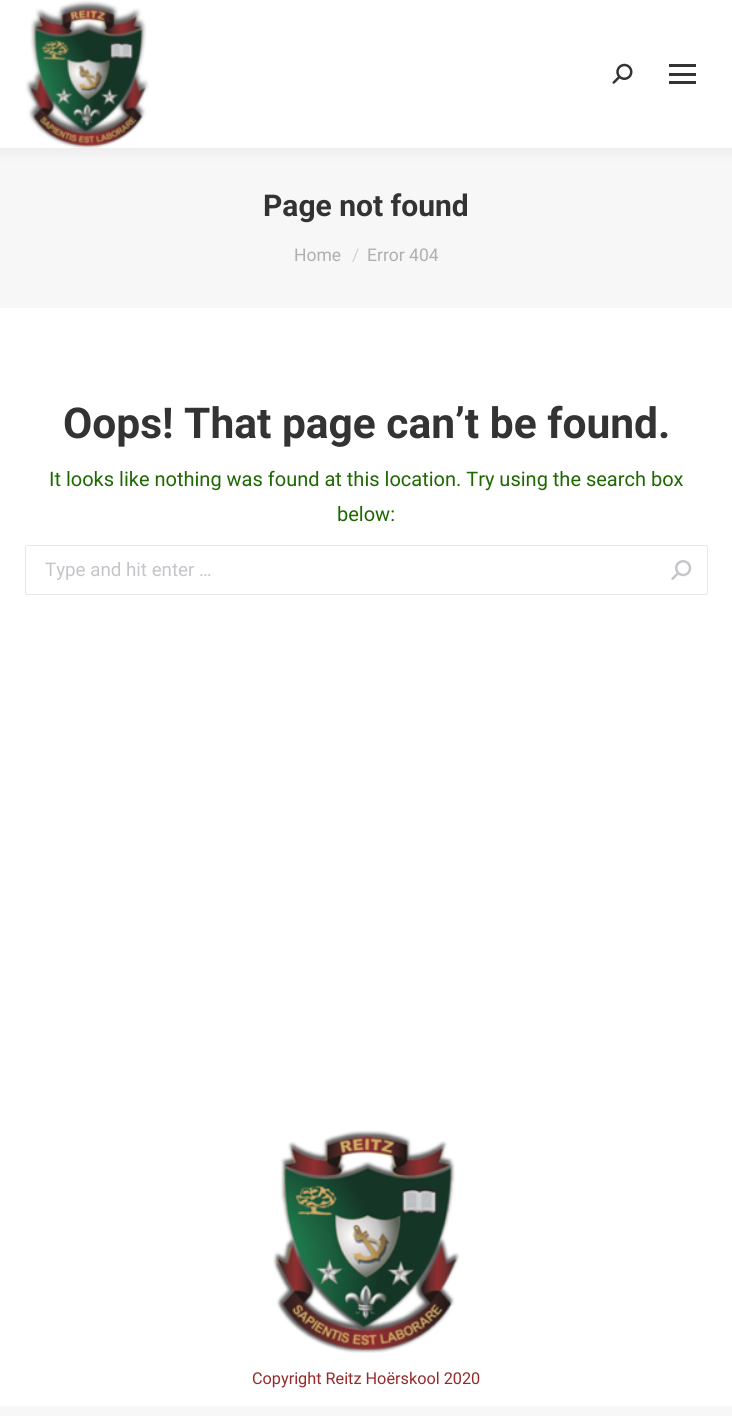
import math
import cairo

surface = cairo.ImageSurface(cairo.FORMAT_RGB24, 732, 1416)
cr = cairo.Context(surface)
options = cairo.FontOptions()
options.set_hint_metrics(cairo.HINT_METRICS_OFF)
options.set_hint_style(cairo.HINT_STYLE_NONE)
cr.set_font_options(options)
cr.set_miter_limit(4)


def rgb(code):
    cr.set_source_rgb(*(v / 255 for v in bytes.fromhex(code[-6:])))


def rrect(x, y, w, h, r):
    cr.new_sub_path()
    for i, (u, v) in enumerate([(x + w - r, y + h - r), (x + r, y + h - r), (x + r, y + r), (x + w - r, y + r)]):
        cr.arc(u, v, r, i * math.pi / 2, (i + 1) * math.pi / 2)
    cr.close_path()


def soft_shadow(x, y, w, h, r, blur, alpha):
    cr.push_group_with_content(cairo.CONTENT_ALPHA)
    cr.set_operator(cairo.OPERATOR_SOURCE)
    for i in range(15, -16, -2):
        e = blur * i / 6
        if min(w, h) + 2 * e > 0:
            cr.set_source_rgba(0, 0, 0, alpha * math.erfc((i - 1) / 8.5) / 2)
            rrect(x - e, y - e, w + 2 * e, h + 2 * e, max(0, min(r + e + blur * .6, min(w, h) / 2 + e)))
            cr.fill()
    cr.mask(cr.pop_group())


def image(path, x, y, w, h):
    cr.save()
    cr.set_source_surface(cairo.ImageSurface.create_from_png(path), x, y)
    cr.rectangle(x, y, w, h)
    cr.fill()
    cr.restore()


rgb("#f7f7f7")
cr.paint()
rgb("#ffffff")
cr.rectangle(0, 308, 732, 1098)
cr.fill()
rgb("#000000")
soft_shadow(-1, -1, 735, 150, 0, 9.5, 0.07)
rgb("#ffffff")
cr.rectangle(0, 0, 732, 148)
cr.fill()
image("img/1.png", 25, 0, 124, 148)
image("img/2.png", 612, 63, 21, 21)
for x, y, w, h, color in [
    (669, 64, 27, 3, "#333333"),
    (669, 73, 27, 3, "#333333"),
    (669, 81, 27, 3, "#333333"),
]:
    rgb(color)
    cr.rectangle(x, y, w, h)
    cr.fill()
rrect(25.5, 545.5, 682, 49, 2)
rgb("#e7e7e7")
cr.set_line_width(1)
cr.stroke()
image("img/3.png", 671, 560, 21, 20)
image("img/4.png", 273, 1130, 187, 223)
cr.select_font_face("Roboto", cairo.FONT_SLANT_NORMAL, cairo.FONT_WEIGHT_BOLD)
cr.set_font_size(30)
rgb("#333333")
cr.move_to(263, 216)
cr.show_text("Page not found")
cr.select_font_face("Roboto")
cr.set_font_size(17.5)
rgb("#adafb3")
cr.move_to(294, 261)
cr.show_text("Home")
rgb("#d1d2d4")
cr.move_to(352, 261)
cr.show_text("/")
rgb("#adafb3")
cr.move_to(367, 261)
cr.show_text("Error 404")
cr.select_font_face("Roboto", cairo.FONT_SLANT_NORMAL, cairo.FONT_WEIGHT_BOLD)
cr.set_font_size(42.5)
rgb("#333333")
cr.move_to(63, 438)
cr.show_text("Oops! That page can’t be found.")
cr.select_font_face("Roboto")
cr.set_font_size(20)
rgb("#1d6800")
cr.move_to(49, 486)
cr.show_text("It looks like nothing was found at this location. Try using the search box")
cr.move_to(337, 521)
cr.show_text("below:")
cr.set_font_size(18.75)
rgb("#c4c5c9")
cr.move_to(45, 576)
cr.show_text("Type and hit enter …")
cr.set_font_size(16.25)
rgb("#962a2a")
cr.move_to(252, 1384)
cr.show_text("Copyright Reitz Hoërskool 2020")
surface.write_to_png("page.png")
